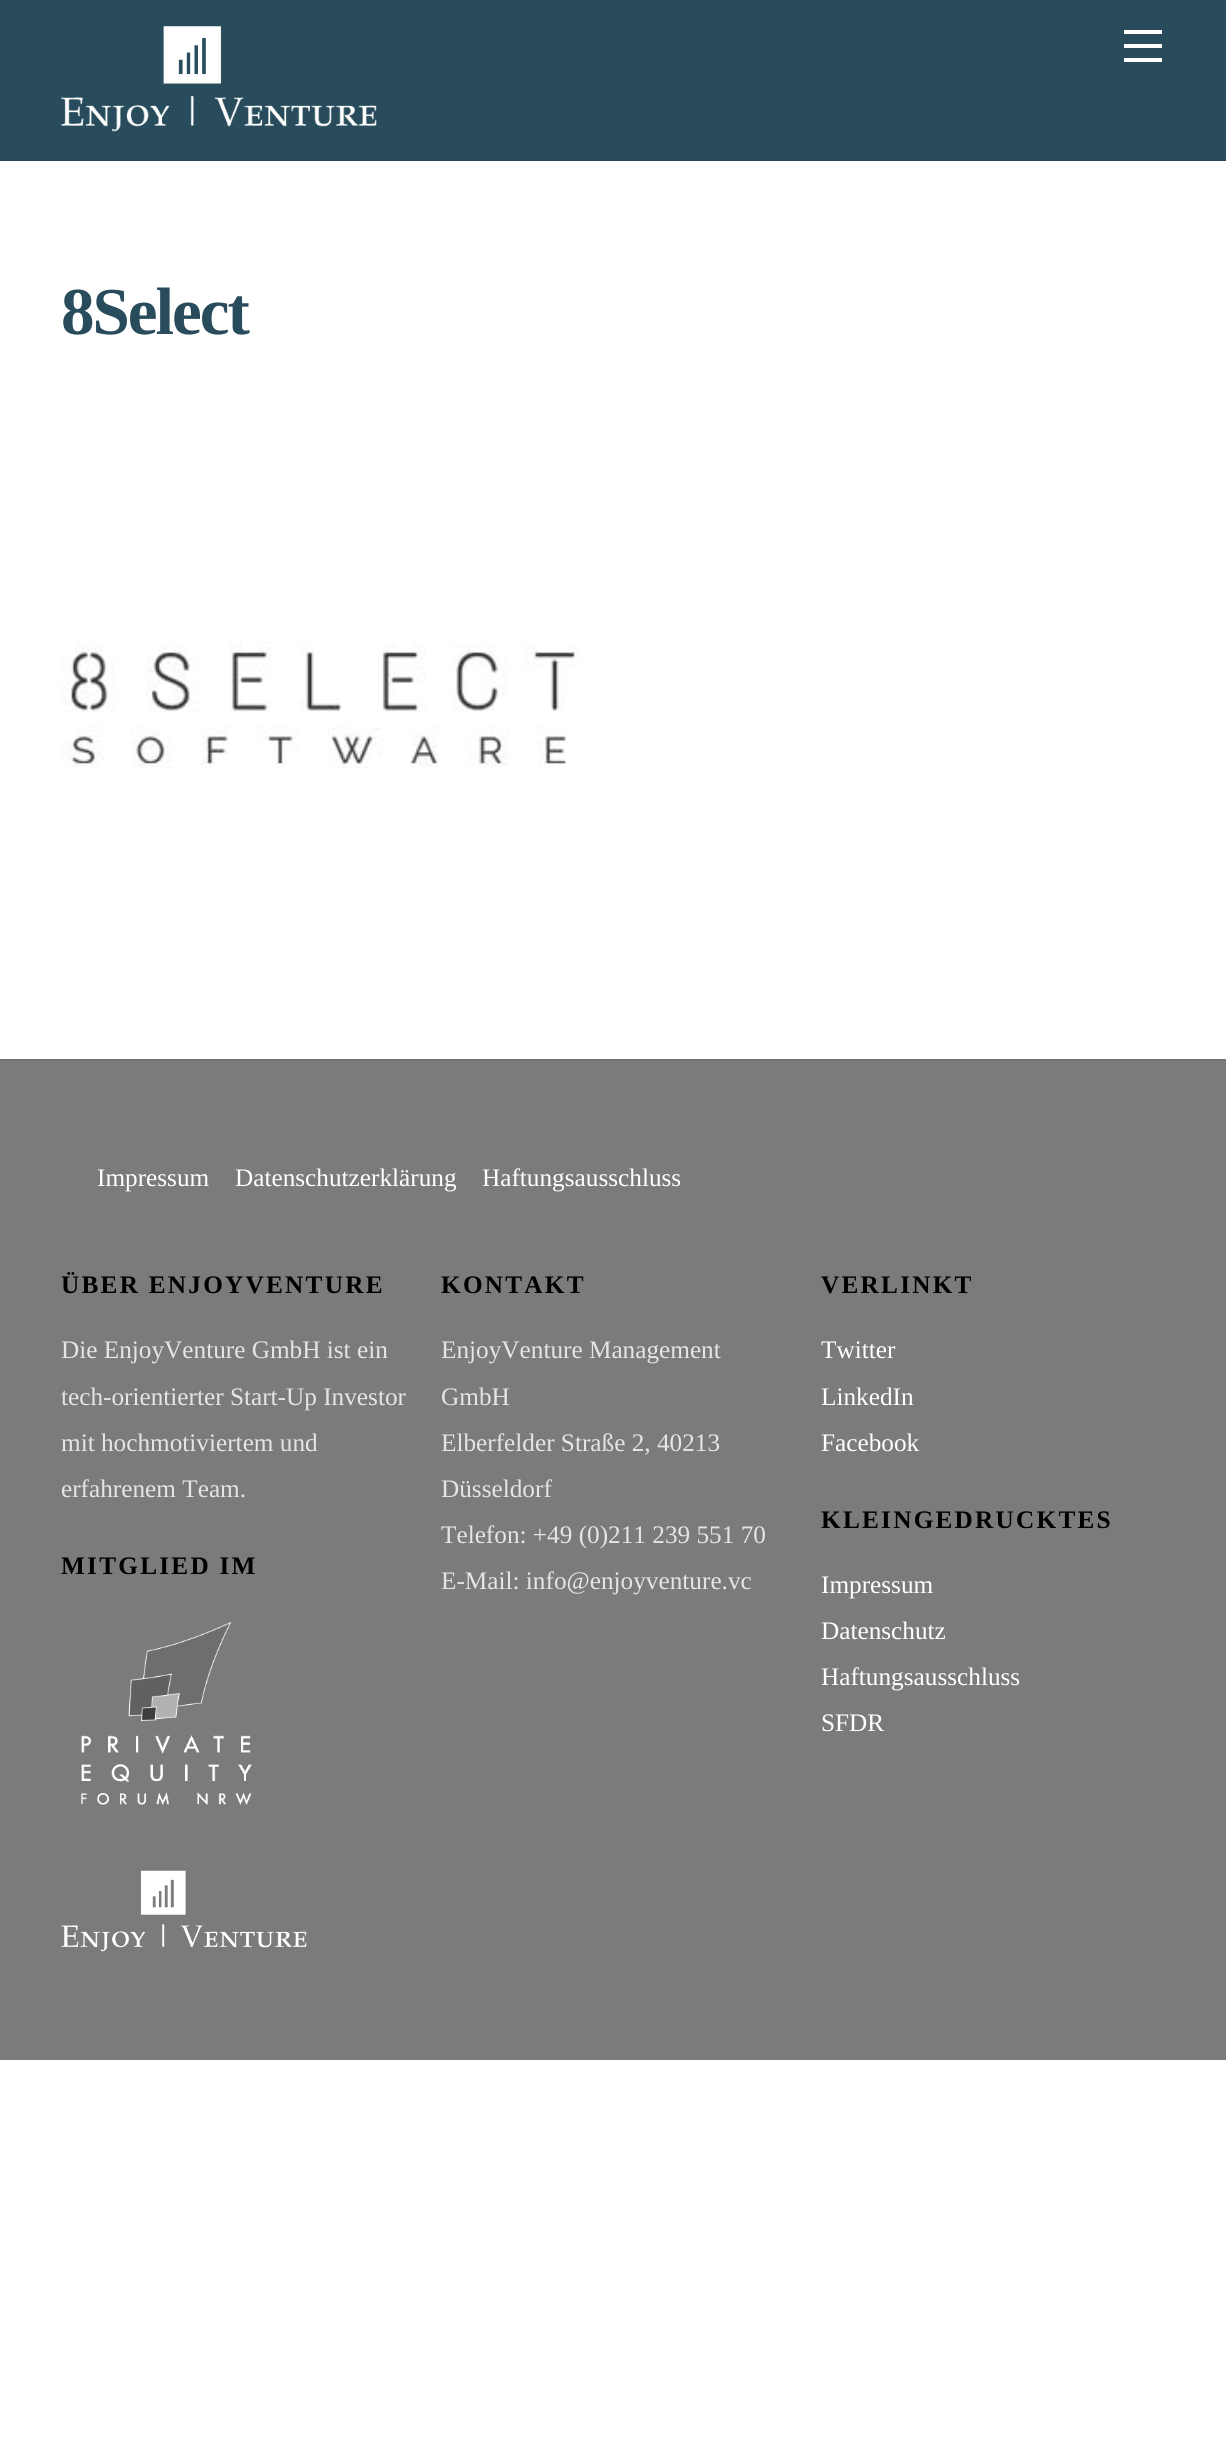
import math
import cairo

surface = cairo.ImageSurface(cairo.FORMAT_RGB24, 1226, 2443)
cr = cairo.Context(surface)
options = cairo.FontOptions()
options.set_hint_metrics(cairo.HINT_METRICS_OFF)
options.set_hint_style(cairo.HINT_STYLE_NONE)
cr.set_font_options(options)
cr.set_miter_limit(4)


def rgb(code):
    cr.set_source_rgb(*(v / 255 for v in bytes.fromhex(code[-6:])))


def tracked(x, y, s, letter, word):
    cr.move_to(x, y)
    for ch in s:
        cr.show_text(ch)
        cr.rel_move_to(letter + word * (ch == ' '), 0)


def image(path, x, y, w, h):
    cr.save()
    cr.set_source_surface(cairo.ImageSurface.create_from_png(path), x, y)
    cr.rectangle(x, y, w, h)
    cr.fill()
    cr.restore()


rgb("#ffffff")
cr.paint()
rgb("#284c5b")
cr.rectangle(0, 0, 1226, 159)
cr.fill()
rgb("#264856")
cr.rectangle(0, 159, 1226, 2)
cr.fill()
image("img/1.png", 61, 26, 316, 106)
for x, y, w, h, color in [
    (1124, 58, 38, 4, "#ffffff"),
    (1124, 30, 38, 4, "#ffffff"),
    (1124, 44, 38, 4, "#ffffff"),
]:
    rgb(color)
    cr.rectangle(x, y, w, h)
    cr.fill()
image("img/2.png", 61, 642, 519, 127)
rgb("#7b7b7b")
cr.rectangle(0, 1061, 1226, 999)
cr.fill()
rgb("#757575")
cr.rectangle(0, 1059, 1226, 2)
cr.fill()
image("img/3.png", 81, 1622, 171, 183)
image("img/4.png", 61, 1870, 246, 82)
cr.select_font_face("Liberation Serif", cairo.FONT_SLANT_NORMAL, cairo.FONT_WEIGHT_BOLD)
cr.set_font_size(67)
rgb("#284c5b")
tracked(61, 334, "8Select", -2, 0)
cr.select_font_face("Liberation Serif")
cr.set_font_size(25.25)
rgb("#ffffff")
for x, y, s in [
    (97, 1186, "Impressum"),
    (235, 1186, "Datenschutzerklärung"),
    (482, 1186, "Haftungsausschluss"),
]:
    cr.move_to(x, y)
    cr.show_text(s)
cr.select_font_face("Liberation Serif", cairo.FONT_SLANT_NORMAL, cairo.FONT_WEIGHT_BOLD)
rgb("#000000")
tracked(61, 1293, "ÜBER ENJOYVENTURE", 2.25, 0)
cr.select_font_face("Liberation Serif")
rgb("#e5e5e5")
for x, y, s in [
    (61, 1358, "Die EnjoyVenture GmbH ist ein"),
    (61, 1405, "tech-orientierter Start-Up Investor"),
    (61, 1451, "mit hochmotiviertem und"),
    (61, 1497, "erfahrenem Team."),
]:
    cr.move_to(x, y)
    cr.show_text(s)
cr.select_font_face("Liberation Serif", cairo.FONT_SLANT_NORMAL, cairo.FONT_WEIGHT_BOLD)
rgb("#000000")
tracked(61, 1574, "MITGLIED IM", 2.25, 0)
tracked(441, 1293, "KONTAKT", 2.25, 0)
cr.select_font_face("Liberation Serif")
rgb("#e5e5e5")
for x, y, s in [
    (441, 1358, "EnjoyVenture Management"),
    (441, 1405, "GmbH"),
    (441, 1451, "Elberfelder Straße 2, 40213"),
    (441, 1497, "Düsseldorf"),
    (441, 1543, "Telefon: +49 (0)211 239 551 70"),
    (441, 1589, "E-Mail: info@enjoyventure.vc"),
]:
    cr.move_to(x, y)
    cr.show_text(s)
cr.select_font_face("Liberation Serif", cairo.FONT_SLANT_NORMAL, cairo.FONT_WEIGHT_BOLD)
rgb("#000000")
tracked(821, 1293, "VERLINKT", 2.25, 0)
cr.select_font_face("Liberation Serif")
rgb("#ffffff")
for x, y, s in [
    (821, 1358, "Twitter"),
    (821, 1405, "LinkedIn"),
    (821, 1451, "Facebook"),
]:
    cr.move_to(x, y)
    cr.show_text(s)
cr.select_font_face("Liberation Serif", cairo.FONT_SLANT_NORMAL, cairo.FONT_WEIGHT_BOLD)
rgb("#000000")
tracked(821, 1528, "KLEINGEDRUCKTES", 2.25, 0)
cr.select_font_face("Liberation Serif")
rgb("#ffffff")
for x, y, s in [
    (821, 1593, "Impressum"),
    (821, 1639, "Datenschutz"),
    (821, 1685, "Haftungsausschluss"),
    (821, 1731, "SFDR"),
]:
    cr.move_to(x, y)
    cr.show_text(s)
surface.write_to_png("page.png")
